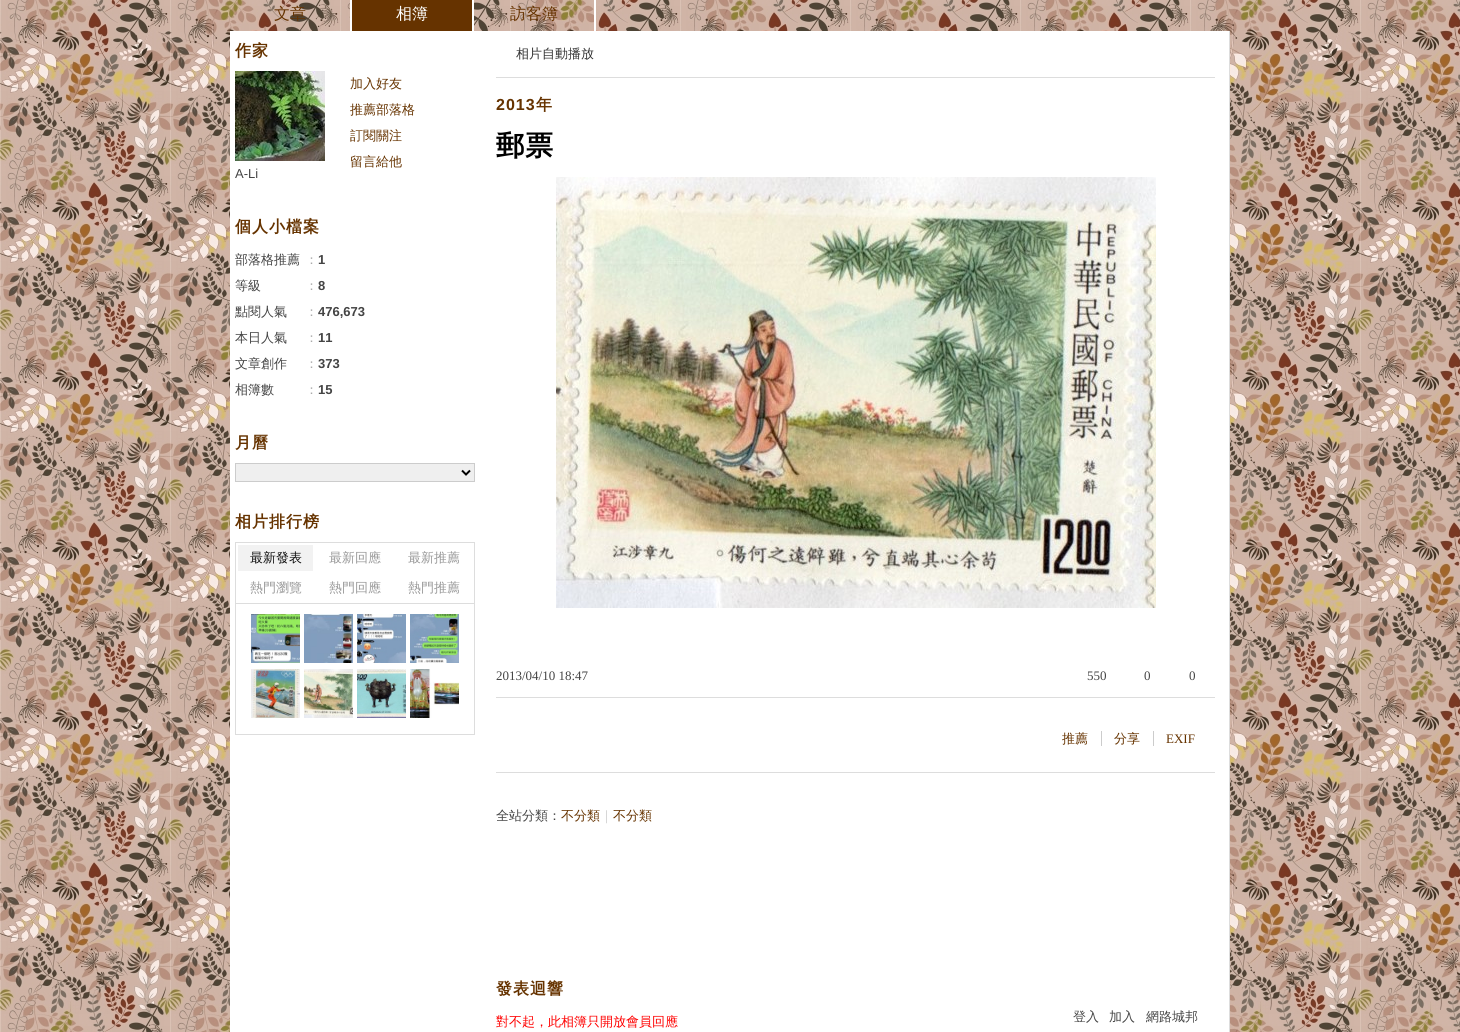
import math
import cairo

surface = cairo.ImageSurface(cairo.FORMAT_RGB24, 1460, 1032)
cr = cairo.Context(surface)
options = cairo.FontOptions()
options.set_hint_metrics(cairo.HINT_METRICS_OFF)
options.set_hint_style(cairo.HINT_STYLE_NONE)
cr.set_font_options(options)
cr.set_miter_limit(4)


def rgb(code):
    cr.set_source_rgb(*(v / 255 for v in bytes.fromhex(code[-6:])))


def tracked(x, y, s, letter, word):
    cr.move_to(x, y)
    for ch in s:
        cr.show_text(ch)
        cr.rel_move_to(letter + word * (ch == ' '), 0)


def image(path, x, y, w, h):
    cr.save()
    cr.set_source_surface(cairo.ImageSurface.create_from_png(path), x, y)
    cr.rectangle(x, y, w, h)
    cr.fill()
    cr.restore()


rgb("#ffffff")
cr.paint()
image("img/1.png", 0, 0, 1460, 1032)
for x, y, w, h, color in [
    (350, 0, 2, 31, "#ffffff"),
    (472, 0, 2, 31, "#ffffff"),
    (352, 0, 120, 31, "#663300"),
    (594, 0, 2, 31, "#ffffff"),
    (230, 31, 999, 1001, "#ffffff"),
]:
    rgb(color)
    cr.rectangle(x, y, w, h)
    cr.fill()
image("img/2.png", 235, 71, 90, 90)
rgb("#efefef")
cr.rectangle(235.5, 463.5, 239, 18)
cr.fill_preserve()
rgb("#cccccc")
cr.set_line_width(1)
cr.stroke()
cr.new_path()
cr.move_to(462, 470.5)
cr.line_to(466, 474.5)
cr.line_to(470, 470.5)
rgb("#000000")
cr.set_line_width(2)
cr.stroke()
cr.rectangle(235.5, 542.5, 239, 61)
rgb("#dddddd")
cr.set_line_width(1)
cr.stroke()
for x, y, w, h, color in [
    (238, 545, 75, 26, "#f2f2f2"),
    (474, 604, 1, 131, "#dddddd"),
    (235, 734, 240, 1, "#dddddd"),
    (235, 604, 1, 131, "#dddddd"),
]:
    rgb(color)
    cr.rectangle(x, y, w, h)
    cr.fill()
image("img/3.png", 251, 614, 49, 49)
image("img/4.png", 304, 614, 49, 49)
image("img/5.png", 357, 614, 49, 49)
image("img/6.png", 410, 614, 49, 49)
image("img/7.png", 251, 669, 49, 49)
image("img/8.png", 304, 669, 49, 49)
image("img/9.png", 357, 669, 49, 49)
image("img/10.png", 410, 669, 49, 49)
cr.rectangle(1229, 31, 1, 1001)
cr.fill()
cr.rectangle(496, 77, 719, 1)
cr.fill()
image("img/11.png", 556, 177, 600, 431)
for x, y, w, h, color in [
    (496, 697, 719, 1, "#dddddd"),
    (1101, 731, 1, 15, "#cccccc"),
    (1153, 731, 1, 15, "#cccccc"),
    (496, 772, 719, 1, "#dddddd"),
]:
    rgb(color)
    cr.rectangle(x, y, w, h)
    cr.fill()
cr.select_font_face("WenQuanYi Zen Hei Medium")
cr.set_font_size(16)
rgb("#663300")
cr.move_to(274, 19)
cr.show_text("文章")
rgb("#ffffff")
cr.move_to(396, 19)
cr.show_text("相簿")
rgb("#663300")
cr.move_to(510, 19)
cr.show_text("訪客簿")
cr.select_font_face("WenQuanYi Zen Hei", cairo.FONT_SLANT_NORMAL, cairo.FONT_WEIGHT_BOLD)
tracked(235, 56, "作家", 1, 0)
cr.select_font_face("WenQuanYi Zen Hei Medium")
cr.set_font_size(13)
for x, y, s in [
    (350, 88, "加入好友"),
    (350, 114, "推薦部落格"),
    (350, 140, "訂閱關注"),
    (350, 166, "留言給他"),
]:
    cr.move_to(x, y)
    cr.show_text(s)
cr.select_font_face("Liberation Sans")
rgb("#444444")
cr.move_to(235, 178)
cr.show_text("A-Li")
cr.select_font_face("WenQuanYi Zen Hei", cairo.FONT_SLANT_NORMAL, cairo.FONT_WEIGHT_BOLD)
cr.set_font_size(16)
rgb("#663300")
tracked(235, 232, "個人小檔案", 1, 0)
cr.select_font_face("WenQuanYi Zen Hei Medium")
cr.set_font_size(13)
rgb("#444444")
cr.move_to(235, 264)
cr.show_text("部落格推薦")
rgb("#aaaaaa")
cr.move_to(305, 264)
cr.show_text("：")
cr.select_font_face("Liberation Sans", cairo.FONT_SLANT_NORMAL, cairo.FONT_WEIGHT_BOLD)
rgb("#444444")
cr.move_to(318, 264)
cr.show_text("1")
cr.select_font_face("WenQuanYi Zen Hei Medium")
cr.move_to(235, 290)
cr.show_text("等級")
rgb("#aaaaaa")
cr.move_to(305, 290)
cr.show_text("：")
cr.select_font_face("Liberation Sans", cairo.FONT_SLANT_NORMAL, cairo.FONT_WEIGHT_BOLD)
rgb("#444444")
cr.move_to(318, 290)
cr.show_text("8")
cr.select_font_face("WenQuanYi Zen Hei Medium")
cr.move_to(235, 316)
cr.show_text("點閱人氣")
rgb("#aaaaaa")
cr.move_to(305, 316)
cr.show_text("：")
cr.select_font_face("Liberation Sans", cairo.FONT_SLANT_NORMAL, cairo.FONT_WEIGHT_BOLD)
rgb("#444444")
cr.move_to(318, 316)
cr.show_text("476,673")
cr.select_font_face("WenQuanYi Zen Hei Medium")
cr.move_to(235, 342)
cr.show_text("本日人氣")
rgb("#aaaaaa")
cr.move_to(305, 342)
cr.show_text("：")
cr.select_font_face("Liberation Sans", cairo.FONT_SLANT_NORMAL, cairo.FONT_WEIGHT_BOLD)
rgb("#444444")
cr.move_to(318, 342)
cr.show_text("11")
cr.select_font_face("WenQuanYi Zen Hei Medium")
cr.move_to(235, 368)
cr.show_text("文章創作")
rgb("#aaaaaa")
cr.move_to(305, 368)
cr.show_text("：")
cr.select_font_face("Liberation Sans", cairo.FONT_SLANT_NORMAL, cairo.FONT_WEIGHT_BOLD)
rgb("#444444")
cr.move_to(318, 368)
cr.show_text("373")
cr.select_font_face("WenQuanYi Zen Hei Medium")
cr.move_to(235, 394)
cr.show_text("相簿數")
rgb("#aaaaaa")
cr.move_to(305, 394)
cr.show_text("：")
cr.select_font_face("Liberation Sans", cairo.FONT_SLANT_NORMAL, cairo.FONT_WEIGHT_BOLD)
rgb("#444444")
cr.move_to(318, 394)
cr.show_text("15")
cr.select_font_face("WenQuanYi Zen Hei", cairo.FONT_SLANT_NORMAL, cairo.FONT_WEIGHT_BOLD)
cr.set_font_size(16)
rgb("#663300")
tracked(235, 448, "月曆", 1, 0)
tracked(235, 527, "相片排行榜", 1, 0)
cr.select_font_face("WenQuanYi Zen Hei Medium")
cr.set_font_size(13)
rgb("#111111")
cr.move_to(250, 562)
cr.show_text("最新發表")
rgb("#999999")
for x, y, s in [
    (329, 562, "最新回應"),
    (408, 562, "最新推薦"),
    (250, 592, "熱門瀏覽"),
    (329, 592, "熱門回應"),
    (408, 592, "熱門推薦"),
]:
    cr.move_to(x, y)
    cr.show_text(s)
rgb("#333333")
cr.move_to(516, 58)
cr.show_text("相片自動播放")
cr.select_font_face("Liberation Sans", cairo.FONT_SLANT_NORMAL, cairo.FONT_WEIGHT_BOLD)
cr.set_font_size(16)
rgb("#663300")
tracked(496, 110, "2013", 1, 0)
cr.select_font_face("WenQuanYi Zen Hei", cairo.FONT_SLANT_NORMAL, cairo.FONT_WEIGHT_BOLD)
tracked(536, 110, "年", 1, 0)
cr.set_font_size(28)
rgb("#000000")
tracked(496, 155, "郵票", 1, 0)
cr.select_font_face("Liberation Serif")
cr.set_font_size(13)
rgb("#444444")
for x, y, s in [
    (496, 680, "2013/04/10 18:47"),
    (1087, 680, "550"),
    (1144, 680, "0"),
    (1189, 680, "0"),
]:
    cr.move_to(x, y)
    cr.show_text(s)
cr.select_font_face("WenQuanYi Zen Hei Medium")
rgb("#663300")
cr.move_to(1062, 743)
cr.show_text("推薦")
cr.move_to(1114, 743)
cr.show_text("分享")
cr.select_font_face("Liberation Serif")
cr.move_to(1166, 743)
cr.show_text("EXIF")
cr.select_font_face("WenQuanYi Zen Hei Medium")
rgb("#444444")
cr.move_to(496, 820)
cr.show_text("全站分類：")
rgb("#663300")
cr.move_to(561, 820)
cr.show_text("不分類")
rgb("#cccccc")
cr.move_to(600, 820)
cr.show_text("｜")
rgb("#663300")
cr.move_to(613, 820)
cr.show_text("不分類")
cr.select_font_face("WenQuanYi Zen Hei", cairo.FONT_SLANT_NORMAL, cairo.FONT_WEIGHT_BOLD)
cr.set_font_size(16)
tracked(496, 994, "發表迴響", 1, 0)
cr.select_font_face("WenQuanYi Zen Hei Medium")
cr.set_font_size(13)
rgb("#ff0000")
cr.move_to(496, 1026)
cr.show_text("對不起，此相簿只開放會員回應")
rgb("#444444")
for x, y, s in [
    (1073, 1021, "登入"),
    (1109, 1021, "加入"),
    (1146, 1021, "網路城邦"),
]:
    cr.move_to(x, y)
    cr.show_text(s)
surface.write_to_png("page.png")
